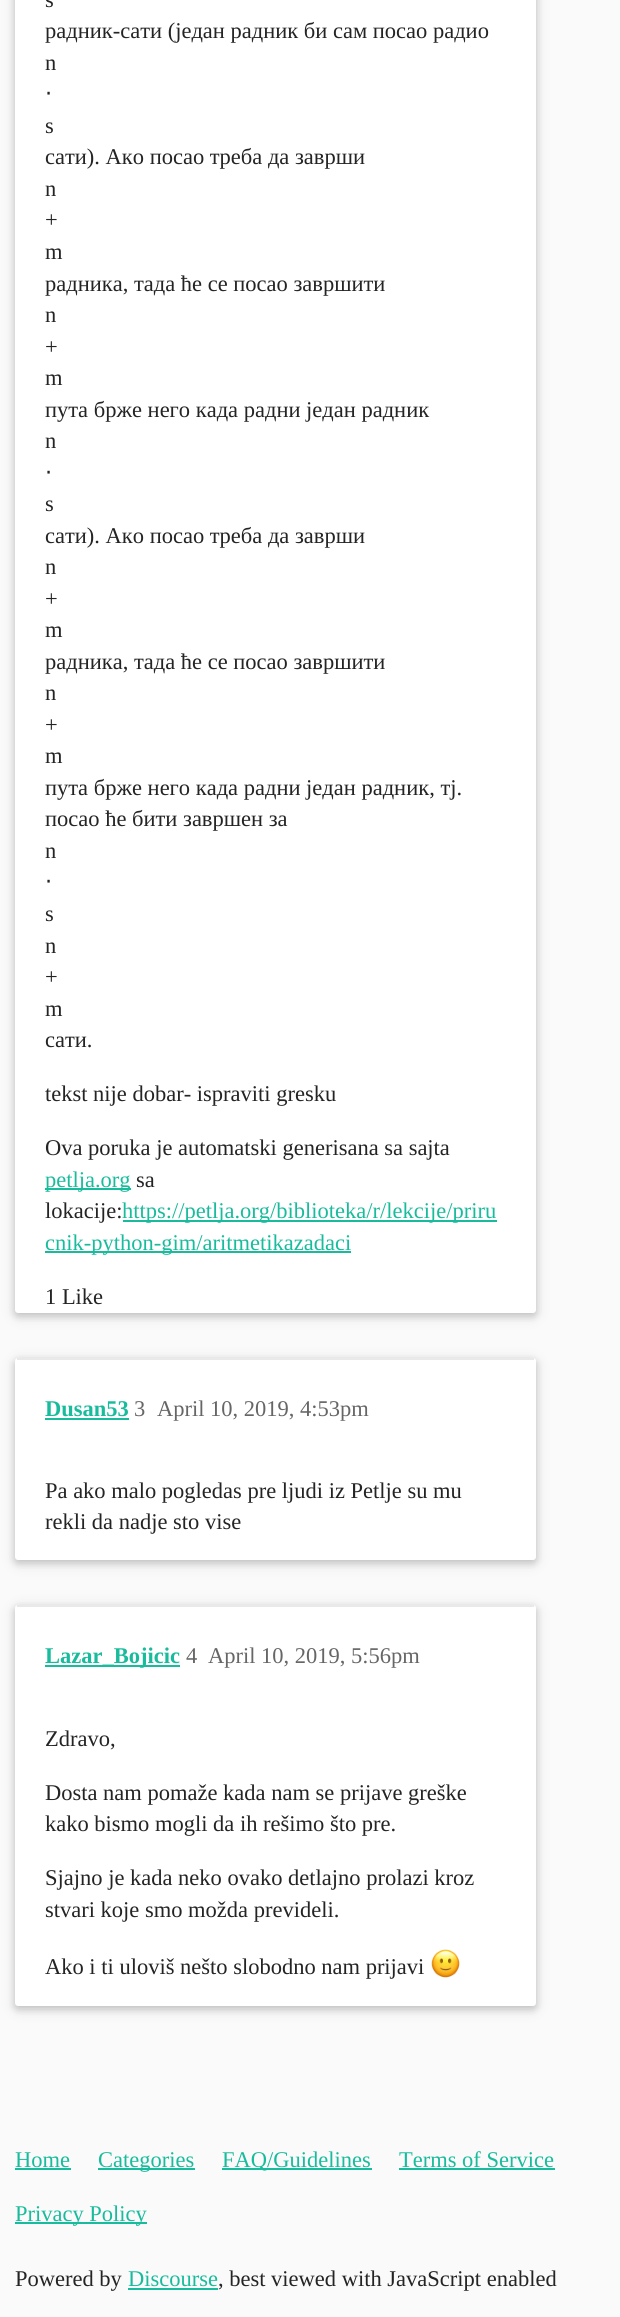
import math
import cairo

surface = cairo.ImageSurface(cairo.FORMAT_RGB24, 620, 2317)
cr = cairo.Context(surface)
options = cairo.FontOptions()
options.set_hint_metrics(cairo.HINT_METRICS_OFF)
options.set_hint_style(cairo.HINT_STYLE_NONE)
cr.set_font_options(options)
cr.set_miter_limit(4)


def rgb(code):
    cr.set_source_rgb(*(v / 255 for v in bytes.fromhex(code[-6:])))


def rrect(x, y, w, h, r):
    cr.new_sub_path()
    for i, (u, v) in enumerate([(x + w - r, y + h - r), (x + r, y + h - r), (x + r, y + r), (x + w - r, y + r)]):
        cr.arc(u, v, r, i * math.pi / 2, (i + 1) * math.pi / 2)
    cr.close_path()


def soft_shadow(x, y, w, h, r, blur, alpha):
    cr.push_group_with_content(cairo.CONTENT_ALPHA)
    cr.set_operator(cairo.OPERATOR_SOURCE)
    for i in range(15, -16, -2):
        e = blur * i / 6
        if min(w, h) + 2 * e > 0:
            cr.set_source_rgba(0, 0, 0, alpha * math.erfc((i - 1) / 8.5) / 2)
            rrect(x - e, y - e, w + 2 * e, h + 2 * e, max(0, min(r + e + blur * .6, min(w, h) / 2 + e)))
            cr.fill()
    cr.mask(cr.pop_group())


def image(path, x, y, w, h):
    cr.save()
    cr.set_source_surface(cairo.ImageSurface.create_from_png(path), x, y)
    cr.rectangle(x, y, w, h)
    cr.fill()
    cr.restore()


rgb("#fafafa")
cr.paint()
rgb("#000000")
soft_shadow(15, -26, 521, 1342, 3, 7.5, 0.12)
soft_shadow(15, -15, 521, 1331, 3, 4, 0.16)
rgb("#ffffff")
rrect(15, -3, 521, 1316, 3)
cr.fill()
for x, y, w, h, color in [
    (45, 1188, 86, 2, "#18bc9c"),
    (123, 1220, 374, 2, "#18bc9c"),
    (45, 1251, 306, 2, "#18bc9c"),
]:
    rgb(color)
    cr.rectangle(x, y, w, h)
    cr.fill()
rgb("#000000")
soft_shadow(15, 1361, 521, 202, 3, 7.5, 0.12)
soft_shadow(15, 1361, 521, 202, 3, 4, 0.16)
rgb("#ffffff")
rrect(15, 1358, 521, 202, 3)
cr.fill()
rgb("#e9e9e9")
cr.rectangle(17, 1358, 517, 2)
cr.fill()
rgb("#18bc9c")
cr.rectangle(45, 1418, 84, 2)
cr.fill()
rgb("#000000")
soft_shadow(15, 1608, 521, 401, 3, 7.5, 0.12)
soft_shadow(15, 1608, 521, 401, 3, 4, 0.16)
rgb("#ffffff")
rrect(15, 1605, 521, 401, 3)
cr.fill()
rgb("#e9e9e9")
cr.rectangle(17, 1605, 517, 2)
cr.fill()
rgb("#18bc9c")
cr.rectangle(45, 1665, 135, 2)
cr.fill()
image("img/1.png", 431, 1949, 29, 29)
for x, y, w, h, color in [
    (15, 2168, 56, 2, "#18bc9c"),
    (98, 2168, 97, 2, "#18bc9c"),
    (222, 2168, 150, 2, "#18bc9c"),
    (399, 2168, 156, 2, "#18bc9c"),
    (15, 2222, 132, 2, "#18bc9c"),
    (128, 2288, 90, 2, "#18bc9c"),
]:
    rgb(color)
    cr.rectangle(x, y, w, h)
    cr.fill()
cr.select_font_face("Liberation Serif")
cr.set_font_size(22.5)
rgb("#242424")
for x, y, s in [
    (45, 7, "s"),
    (45, 38, "радник-сати (један радник би сам посао радио"),
    (45, 70, "n"),
]:
    cr.move_to(x, y)
    cr.show_text(s)
cr.select_font_face("DejaVu Sans")
cr.move_to(45, 101)
cr.show_text("⋅")
cr.select_font_face("Liberation Serif")
for x, y, s in [
    (45, 133, "s"),
    (45, 164, "сати). Ако посао треба да заврши"),
    (45, 196, "n"),
    (45, 227, "+"),
    (45, 259, "m"),
    (45, 291, "радника, тада ће се посао завршити"),
    (45, 322, "n"),
    (45, 354, "+"),
    (45, 385, "m"),
    (45, 417, "пута брже него када радни један радник"),
    (45, 448, "n"),
]:
    cr.move_to(x, y)
    cr.show_text(s)
cr.select_font_face("DejaVu Sans")
cr.move_to(45, 480)
cr.show_text("⋅")
cr.select_font_face("Liberation Serif")
for x, y, s in [
    (45, 511, "s"),
    (45, 543, "сати). Ако посао треба да заврши"),
    (45, 574, "n"),
    (45, 606, "+"),
    (45, 637, "m"),
    (45, 669, "радника, тада ће се посао завршити"),
    (45, 700, "n"),
    (45, 732, "+"),
    (45, 763, "m"),
    (45, 795, "пута брже него када радни један радник, тј."),
    (45, 826, "посао ће бити завршен за"),
    (45, 858, "n"),
]:
    cr.move_to(x, y)
    cr.show_text(s)
cr.select_font_face("DejaVu Sans")
cr.move_to(45, 889)
cr.show_text("⋅")
cr.select_font_face("Liberation Serif")
for x, y, s in [
    (45, 921, "s"),
    (45, 953, "n"),
    (45, 984, "+"),
    (45, 1016, "m"),
    (45, 1047, "сати."),
    (45, 1101, "tekst nije dobar- ispraviti gresku"),
    (45, 1155, "Ova poruka je automatski generisana sa sajta"),
]:
    cr.move_to(x, y)
    cr.show_text(s)
rgb("#18bc9c")
cr.move_to(45, 1187)
cr.show_text("petlja.org")
rgb("#242424")
cr.move_to(136, 1187)
cr.show_text("sa")
cr.move_to(45, 1218)
cr.show_text("lokacije:")
rgb("#18bc9c")
cr.move_to(122, 1218)
cr.show_text("https://petlja.org/biblioteka/r/lekcije/priru")
cr.move_to(45, 1250)
cr.show_text("cnik-python-gim/aritmetikazadaci")
rgb("#242424")
cr.move_to(45, 1304)
cr.show_text("1 Like")
cr.select_font_face("Liberation Serif", cairo.FONT_SLANT_NORMAL, cairo.FONT_WEIGHT_BOLD)
rgb("#18bc9c")
cr.move_to(45, 1416)
cr.show_text("Dusan53")
cr.select_font_face("Liberation Serif")
rgb("#666666")
cr.move_to(134, 1416)
cr.show_text("3")
cr.move_to(157, 1416)
cr.show_text("April 10, 2019, 4:53pm")
rgb("#242424")
cr.move_to(45, 1498)
cr.show_text("Pa ako malo pogledas pre ljudi iz Petlje su mu")
cr.move_to(45, 1529)
cr.show_text("rekli da nadje sto vise")
cr.select_font_face("Liberation Serif", cairo.FONT_SLANT_NORMAL, cairo.FONT_WEIGHT_BOLD)
rgb("#18bc9c")
cr.move_to(45, 1663)
cr.show_text("Lazar_Bojicic")
cr.select_font_face("Liberation Serif")
rgb("#666666")
cr.move_to(186, 1663)
cr.show_text("4")
cr.move_to(208, 1663)
cr.show_text("April 10, 2019, 5:56pm")
rgb("#242424")
for x, y, s in [
    (45, 1746, "Zdravo,"),
    (45, 1800, "Dosta nam pomaže kada nam se prijave greške"),
    (45, 1831, "kako bismo mogli da ih rešimo što pre."),
    (45, 1885, "Sjajno je kada neko ovako detlajno prolazi kroz"),
    (45, 1917, "stvari koje smo možda prevideli."),
    (45, 1974, "Ako i ti uloviš nešto slobodno nam prijavi"),
]:
    cr.move_to(x, y)
    cr.show_text(s)
rgb("#18bc9c")
for x, y, s in [
    (15, 2167, "Home"),
    (98, 2167, "Categories"),
    (222, 2167, "FAQ/Guidelines"),
    (399, 2167, "Terms of Service"),
    (15, 2221, "Privacy Policy"),
]:
    cr.move_to(x, y)
    cr.show_text(s)
rgb("#242424")
cr.move_to(15, 2286)
cr.show_text("Powered by")
rgb("#18bc9c")
cr.move_to(128, 2286)
cr.show_text("Discourse")
rgb("#242424")
cr.move_to(218, 2286)
cr.show_text(", best viewed with JavaScript enabled")
surface.write_to_png("page.png")
